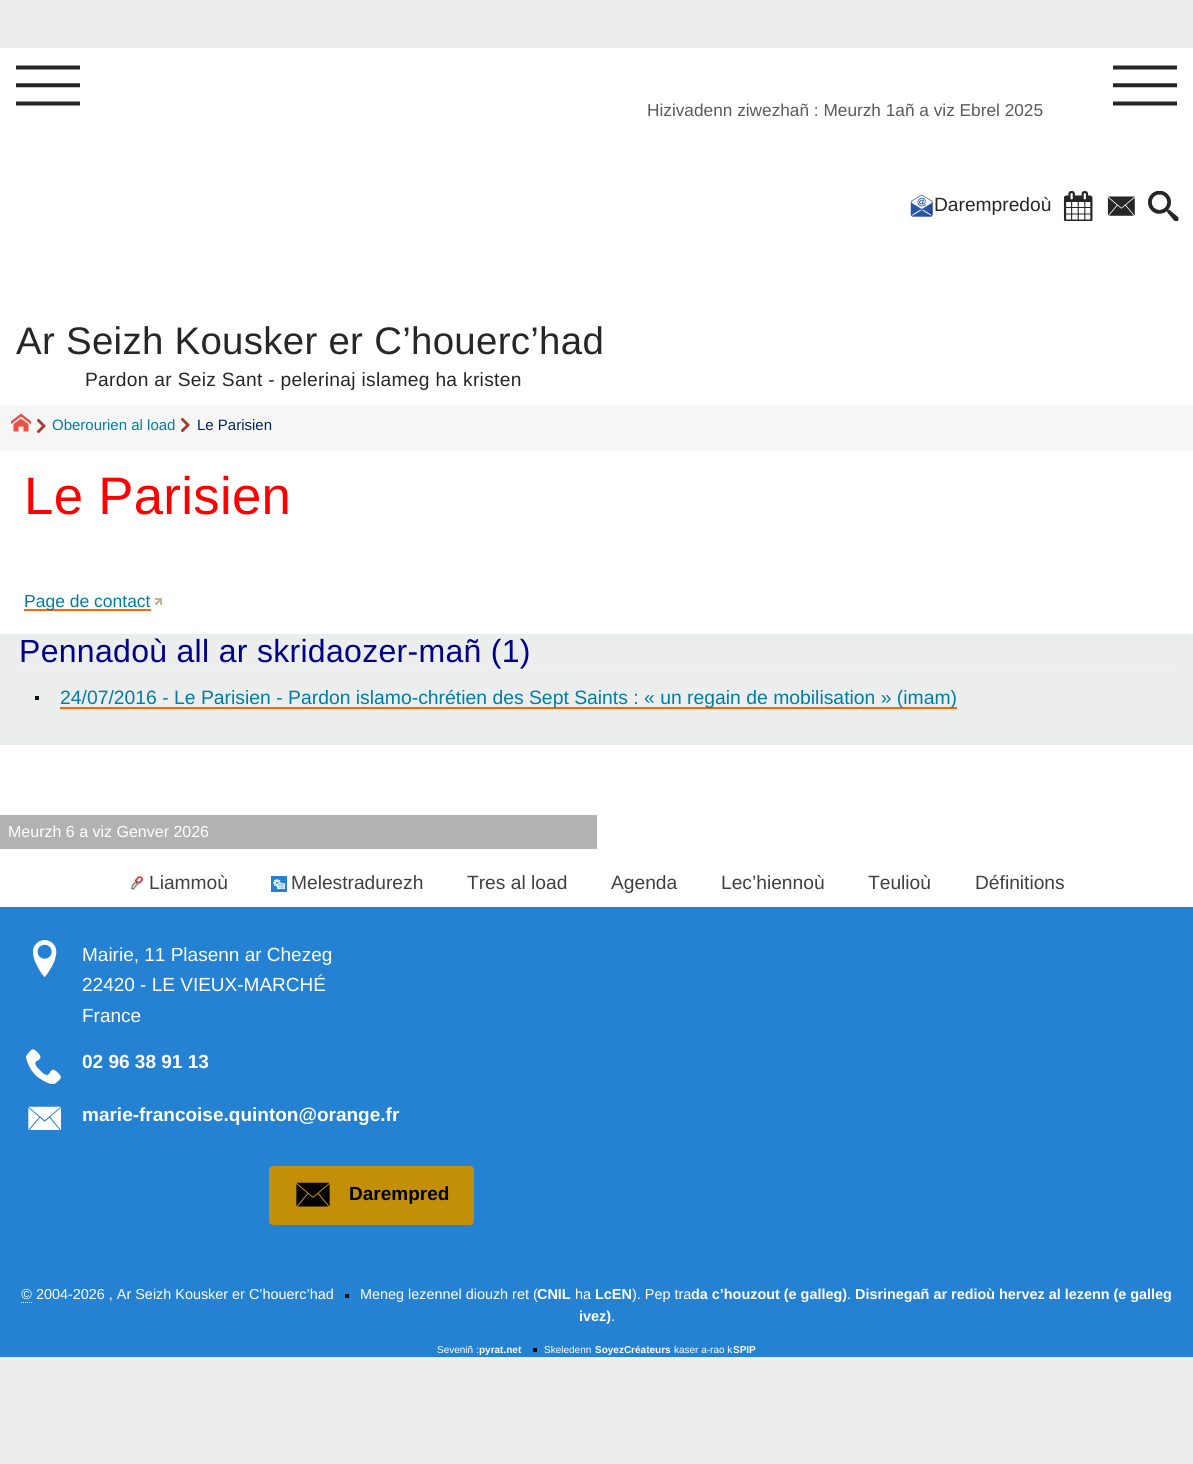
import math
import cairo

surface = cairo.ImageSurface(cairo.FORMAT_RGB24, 1193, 1464)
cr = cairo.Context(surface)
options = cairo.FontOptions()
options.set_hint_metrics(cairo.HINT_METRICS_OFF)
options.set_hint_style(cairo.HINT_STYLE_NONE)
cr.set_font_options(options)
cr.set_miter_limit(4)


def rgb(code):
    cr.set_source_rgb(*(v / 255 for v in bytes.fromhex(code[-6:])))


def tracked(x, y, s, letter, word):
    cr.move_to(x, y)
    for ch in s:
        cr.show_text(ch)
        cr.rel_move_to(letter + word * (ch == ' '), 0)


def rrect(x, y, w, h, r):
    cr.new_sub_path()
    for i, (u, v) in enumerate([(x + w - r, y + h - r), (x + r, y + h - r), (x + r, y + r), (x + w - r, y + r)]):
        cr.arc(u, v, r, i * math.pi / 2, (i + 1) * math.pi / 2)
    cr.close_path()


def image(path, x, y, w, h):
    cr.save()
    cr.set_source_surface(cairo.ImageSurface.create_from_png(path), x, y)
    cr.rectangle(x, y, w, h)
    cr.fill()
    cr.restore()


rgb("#eceded")
cr.paint()
rgb("#ffffff")
cr.rectangle(0, 48, 1193, 357)
cr.fill()
image("img/1.png", 16, 65, 64, 41)
image("img/1.png", 1113, 65, 64, 41)
image("img/2.png", 910, 194, 23, 23)
image("img/3.png", 1063, 191, 30, 30)
image("img/4.png", 1107, 196, 28, 20)
image("img/5.png", 1148, 191, 31, 30)
rgb("#f6f6f6")
cr.rectangle(0, 405, 1193, 46)
cr.fill()
image("img/6.png", 37, 419, 9, 14)
image("img/7.png", 11, 413, 20, 19)
image("img/6.png", 181, 418, 9, 14)
rgb("#ffffff")
cr.rectangle(0, 451, 1193, 320)
cr.fill()
rgb("#ff6600")
cr.rectangle(24, 609, 127, 2)
cr.fill()
image("img/8.png", 155, 598, 7, 7)
for x, y, w, h, color in [
    (0, 634, 1193, 111, "#eceded"),
    (19, 669, 1155, 1, "#f1f2f2"),
    (35, 696, 4, 4, "#0e0e0e"),
    (60, 707, 897, 2, "#ff6600"),
    (0, 771, 1193, 136, "#ffffff"),
    (0, 815, 597, 34, "#b2b2b2"),
    (0, 907, 1193, 450, "#2582d3"),
]:
    rgb(color)
    cr.rectangle(x, y, w, h)
    cr.fill()
image("img/9.png", 129, 876, 16, 16)
image("img/10.png", 271, 876, 16, 16)
image("img/11.png", 33, 940, 24, 37)
image("img/12.png", 26, 1049, 35, 35)
image("img/13.png", 28, 1106, 33, 24)
rgb("#c38f06")
rrect(269, 1166, 205, 59, 4)
cr.fill()
image("img/14.png", 296, 1182, 34, 25)
cr.new_path()
cr.move_to(21, 1302.5)
cr.line_to(32, 1302.5)
rgb("#ffffff")
cr.set_line_width(1)
cr.set_dash([1, 1])
cr.stroke()
rgb("#0e0e0e")
cr.rectangle(345, 1294, 4, 4)
cr.fill()
cr.rectangle(533, 1348, 4, 4)
cr.fill()
cr.select_font_face("Liberation Sans")
cr.set_font_size(17.25)
rgb("#595959")
cr.move_to(647, 116)
cr.show_text("Hizivadenn ziwezhañ : Meurzh 1añ a viz Ebrel 2025")
cr.set_font_size(19.2)
rgb("#262626")
cr.move_to(934, 211)
cr.show_text("Darempredoù")
cr.set_font_size(38.4)
tracked(16, 354, "Ar Seizh Kousker er C’houerc’had", 0.3, 0)
cr.set_font_size(19.2)
tracked(85, 386, "Pardon ar Seiz Sant - pelerinaj islameg ha kristen", 0.3, 0)
cr.set_font_size(15)
rgb("#017ca5")
cr.move_to(52, 430)
cr.show_text("Oberourien al load")
rgb("#02265a")
cr.move_to(197, 430)
cr.show_text("Le Parisien")
cr.set_font_size(52.75)
rgb("#ff0000")
tracked(24, 514, "Le Parisien", 0.3, 0)
cr.set_font_size(17.5)
rgb("#017ca5")
cr.move_to(24, 607)
cr.show_text("Page de contact")
cr.set_font_size(32)
rgb("#000088")
tracked(19, 662, "Pennadoù all ar skridaozer-mañ (1)", 0.3, 0)
cr.set_font_size(19.35)
rgb("#017ca5")
cr.move_to(60, 704)
cr.show_text("24/07/2016 - Le Parisien - Pardon islamo-chrétien des Sept Saints : « un regain de mobilisation » (imam)")
cr.set_font_size(16)
rgb("#ffffff")
cr.move_to(8, 837)
cr.show_text("Meurzh 6 a viz Genver 2026")
cr.set_font_size(19.2)
rgb("#404040")
for x, y, s in [
    (149, 889, "Liammoù"),
    (291, 889, "Melestradurezh"),
    (467, 889, "Tres al load"),
    (611, 889, "Agenda"),
    (721, 889, "Lec’hiennoù"),
    (868, 889, "Teulioù"),
    (975, 889, "Définitions"),
]:
    cr.move_to(x, y)
    cr.show_text(s)
cr.set_font_size(19)
rgb("#ffffff")
for x, y, s in [
    (82, 961, "Mairie, 11 Plasenn ar Chezeg"),
    (82, 991, "22420 - LE VIEUX-MARCHÉ"),
    (82, 1022, "France"),
]:
    cr.move_to(x, y)
    cr.show_text(s)
cr.select_font_face("Liberation Sans", cairo.FONT_SLANT_NORMAL, cairo.FONT_WEIGHT_BOLD)
cr.move_to(82, 1068)
cr.show_text("02 96 38 91 13")
cr.move_to(82, 1121)
cr.show_text("marie-francoise.quinton@orange.fr")
rgb("#000000")
cr.move_to(349, 1200)
cr.show_text("Darempred")
cr.select_font_face("Liberation Sans", cairo.FONT_SLANT_ITALIC)
cr.set_font_size(14.4)
rgb("#ffffff")
cr.move_to(21, 1299)
cr.show_text("©")
cr.select_font_face("Liberation Sans")
cr.move_to(36, 1299)
cr.show_text("2004-2026 , Ar Seizh Kousker er C’houerc’had")
cr.move_to(360, 1299)
cr.show_text("Meneg lezennel diouzh ret (")
cr.select_font_face("Liberation Sans", cairo.FONT_SLANT_NORMAL, cairo.FONT_WEIGHT_BOLD)
cr.move_to(537, 1299)
cr.show_text("CNIL")
cr.select_font_face("Liberation Sans")
cr.move_to(575, 1299)
cr.show_text("ha")
cr.select_font_face("Liberation Sans", cairo.FONT_SLANT_NORMAL, cairo.FONT_WEIGHT_BOLD)
cr.move_to(595, 1299)
cr.show_text("LcEN")
cr.select_font_face("Liberation Sans")
cr.move_to(632, 1299)
cr.show_text("). Pep tra")
cr.select_font_face("Liberation Sans", cairo.FONT_SLANT_NORMAL, cairo.FONT_WEIGHT_BOLD)
cr.move_to(691, 1299)
cr.show_text("da c’houzout (e galleg)")
cr.select_font_face("Liberation Sans")
cr.move_to(847, 1299)
cr.show_text(".")
cr.select_font_face("Liberation Sans", cairo.FONT_SLANT_NORMAL, cairo.FONT_WEIGHT_BOLD)
cr.move_to(855, 1299)
cr.show_text("Disrinegañ ar redioù hervez al lezenn (e galleg")
cr.move_to(579, 1321)
cr.show_text("ivez)")
cr.select_font_face("Liberation Sans")
cr.move_to(611, 1321)
cr.show_text(".")
cr.set_font_size(10)
cr.move_to(437, 1353)
cr.show_text("Seveniñ :")
cr.select_font_face("Liberation Sans", cairo.FONT_SLANT_NORMAL, cairo.FONT_WEIGHT_BOLD)
cr.move_to(479, 1353)
cr.show_text("pyrat.net")
cr.select_font_face("Liberation Sans")
cr.move_to(544, 1353)
cr.show_text("Skeledenn")
cr.select_font_face("Liberation Sans", cairo.FONT_SLANT_NORMAL, cairo.FONT_WEIGHT_BOLD)
cr.move_to(595, 1353)
cr.show_text("SoyezCréateurs")
cr.select_font_face("Liberation Sans")
cr.move_to(674, 1353)
cr.show_text("kaser a-rao k")
cr.select_font_face("Liberation Sans", cairo.FONT_SLANT_NORMAL, cairo.FONT_WEIGHT_BOLD)
cr.move_to(733, 1353)
cr.show_text("SPIP")
surface.write_to_png("page.png")
